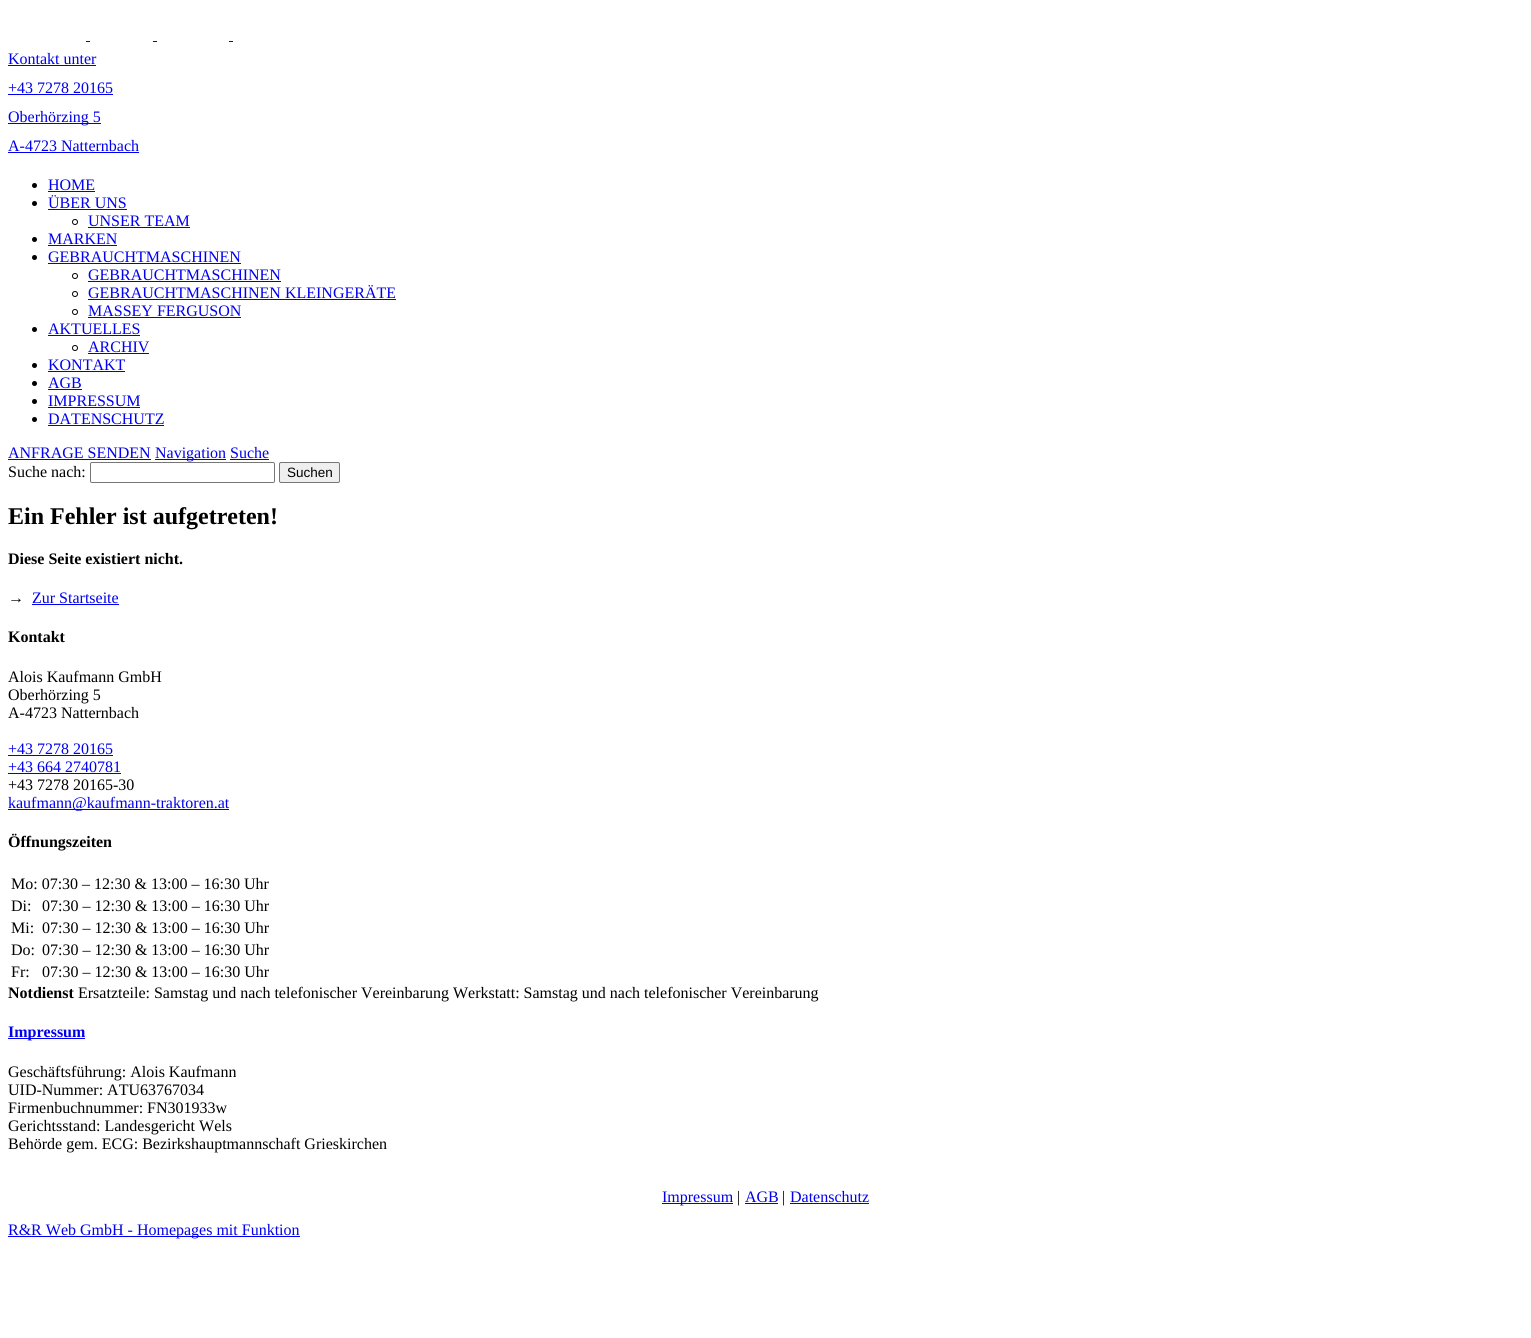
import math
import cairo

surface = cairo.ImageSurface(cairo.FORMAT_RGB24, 1531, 1338)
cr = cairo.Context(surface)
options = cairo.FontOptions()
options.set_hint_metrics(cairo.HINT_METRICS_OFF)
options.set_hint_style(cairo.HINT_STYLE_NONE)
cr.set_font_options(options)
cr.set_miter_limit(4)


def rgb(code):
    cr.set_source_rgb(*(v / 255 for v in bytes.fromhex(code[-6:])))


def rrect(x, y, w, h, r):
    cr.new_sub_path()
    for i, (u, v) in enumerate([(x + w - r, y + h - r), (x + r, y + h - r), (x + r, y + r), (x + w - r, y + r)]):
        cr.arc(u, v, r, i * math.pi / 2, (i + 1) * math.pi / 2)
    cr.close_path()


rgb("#ffffff")
cr.paint()
for x, y, w, h, color in [
    (86, 41, 4, 1, "#0000ee"),
    (153, 41, 4, 1, "#0000ee"),
    (229, 41, 4, 1, "#0000ee"),
    (8, 65, 88, 1, "#0000ee"),
    (8, 94, 105, 1, "#0000ee"),
    (8, 123, 93, 1, "#0000ee"),
    (8, 152, 131, 1, "#0000ee"),
]:
    rgb(color)
    cr.rectangle(x, y, w, h)
    cr.fill()
rgb("#000000")
cr.arc(34.5, 185.5, 2.5, 0, 2 * math.pi)
cr.fill()
rgb("#0000ee")
cr.rectangle(48, 191, 47, 1)
cr.fill()
rgb("#000000")
cr.arc(34.5, 203.5, 2.5, 0, 2 * math.pi)
cr.fill()
rgb("#0000ee")
cr.rectangle(48, 209, 79, 1)
cr.fill()
cr.arc(75, 222, 2.5, 0, 2 * math.pi)
rgb("#000000")
cr.set_line_width(1)
cr.stroke()
rgb("#0000ee")
cr.rectangle(88, 227, 102, 1)
cr.fill()
rgb("#000000")
cr.arc(34.5, 239.5, 2.5, 0, 2 * math.pi)
cr.fill()
rgb("#0000ee")
cr.rectangle(48, 245, 69, 1)
cr.fill()
rgb("#000000")
cr.arc(34.5, 257.5, 2.5, 0, 2 * math.pi)
cr.fill()
rgb("#0000ee")
cr.rectangle(48, 263, 193, 1)
cr.fill()
cr.arc(75, 276, 2.5, 0, 2 * math.pi)
rgb("#000000")
cr.stroke()
rgb("#0000ee")
cr.rectangle(88, 281, 193, 1)
cr.fill()
cr.arc(75, 294, 2.5, 0, 2 * math.pi)
rgb("#000000")
cr.stroke()
rgb("#0000ee")
cr.rectangle(88, 299, 308, 1)
cr.fill()
cr.arc(75, 312, 2.5, 0, 2 * math.pi)
rgb("#000000")
cr.stroke()
rgb("#0000ee")
cr.rectangle(88, 317, 153, 1)
cr.fill()
rgb("#000000")
cr.arc(34.5, 329.5, 2.5, 0, 2 * math.pi)
cr.fill()
rgb("#0000ee")
cr.rectangle(48, 335, 92, 1)
cr.fill()
cr.arc(75, 348, 2.5, 0, 2 * math.pi)
rgb("#000000")
cr.stroke()
rgb("#0000ee")
cr.rectangle(88, 353, 61, 1)
cr.fill()
rgb("#000000")
cr.arc(34.5, 365.5, 2.5, 0, 2 * math.pi)
cr.fill()
rgb("#0000ee")
cr.rectangle(48, 371, 77, 1)
cr.fill()
rgb("#000000")
cr.arc(34.5, 383.5, 2.5, 0, 2 * math.pi)
cr.fill()
rgb("#0000ee")
cr.rectangle(48, 389, 34, 1)
cr.fill()
rgb("#000000")
cr.arc(34.5, 401.5, 2.5, 0, 2 * math.pi)
cr.fill()
rgb("#0000ee")
cr.rectangle(48, 407, 92, 1)
cr.fill()
rgb("#000000")
cr.arc(34.5, 419.5, 2.5, 0, 2 * math.pi)
cr.fill()
for x, y, w, h, color in [
    (48, 425, 116, 1, "#0000ee"),
    (8, 459, 143, 1, "#0000ee"),
    (155, 459, 71, 1, "#0000ee"),
    (230, 459, 39, 1, "#0000ee"),
]:
    rgb(color)
    cr.rectangle(x, y, w, h)
    cr.fill()
rrect(90.5, 462.5, 184, 20, 1.5)
rgb("#767676")
cr.stroke()
rgb("#efefef")
rrect(279.5, 462.5, 60, 20, 1.5)
cr.fill_preserve()
rgb("#767676")
cr.stroke()
for x, y, w, h, color in [
    (32, 604, 87, 1, "#0000ee"),
    (8, 755, 105, 1, "#0000ee"),
    (8, 773, 113, 1, "#0000ee"),
    (8, 809, 221, 1, "#0000ee"),
    (8, 1038, 77, 1, "#0000ee"),
    (662, 1203, 71, 1, "#0000ee"),
    (745, 1203, 33, 1, "#0000ee"),
    (790, 1203, 79, 1, "#0000ee"),
    (8, 1236, 292, 1, "#0000ee"),
]:
    rgb(color)
    cr.rectangle(x, y, w, h)
    cr.fill()
cr.select_font_face("Liberation Serif")
cr.set_font_size(16)
for x, y, s in [
    (8, 64, "Kontakt unter"),
    (8, 93, "+43 7278 20165"),
    (8, 122, "Oberhörzing 5"),
    (8, 151, "A-4723 Natternbach"),
    (48, 190, "HOME"),
    (48, 208, "ÜBER UNS"),
    (88, 226, "UNSER TEAM"),
    (48, 244, "MARKEN"),
    (48, 262, "GEBRAUCHTMASCHINEN"),
    (88, 280, "GEBRAUCHTMASCHINEN"),
    (88, 298, "GEBRAUCHTMASCHINEN KLEINGERÄTE"),
    (88, 316, "MASSEY FERGUSON"),
    (48, 334, "AKTUELLES"),
    (88, 352, "ARCHIV"),
    (48, 370, "KONTAKT"),
    (48, 388, "AGB"),
    (48, 406, "IMPRESSUM"),
    (48, 424, "DATENSCHUTZ"),
    (8, 458, "ANFRAGE SENDEN"),
    (155, 458, "Navigation Suche"),
]:
    cr.move_to(x, y)
    cr.show_text(s)
rgb("#000000")
cr.move_to(8, 477)
cr.show_text("Suche nach:")
cr.select_font_face("Liberation Sans")
cr.set_font_size(13.5)
cr.move_to(287, 477)
cr.show_text("Suchen")
cr.select_font_face("Liberation Serif", cairo.FONT_SLANT_NORMAL, cairo.FONT_WEIGHT_BOLD)
cr.set_font_size(24)
cr.move_to(8, 524)
cr.show_text("Ein Fehler ist aufgetreten!")
cr.set_font_size(16)
cr.move_to(8, 564)
cr.show_text("Diese Seite existiert nicht.")
cr.select_font_face("Liberation Serif")
cr.move_to(8, 603)
cr.show_text("→")
rgb("#0000ee")
cr.move_to(32, 603)
cr.show_text("Zur Startseite")
cr.select_font_face("Liberation Serif", cairo.FONT_SLANT_NORMAL, cairo.FONT_WEIGHT_BOLD)
rgb("#000000")
cr.move_to(8, 642)
cr.show_text("Kontakt")
cr.select_font_face("Liberation Serif")
for x, y, s in [
    (8, 682, "Alois Kaufmann GmbH"),
    (8, 700, "Oberhörzing 5"),
    (8, 718, "A-4723 Natternbach"),
]:
    cr.move_to(x, y)
    cr.show_text(s)
rgb("#0000ee")
cr.move_to(8, 754)
cr.show_text("+43 7278 20165")
cr.move_to(8, 772)
cr.show_text("+43 664 2740781")
rgb("#000000")
cr.move_to(8, 790)
cr.show_text("+43 7278 20165-30")
rgb("#0000ee")
cr.move_to(8, 808)
cr.show_text("kaufmann@kaufmann-traktoren.at")
cr.select_font_face("Liberation Serif", cairo.FONT_SLANT_NORMAL, cairo.FONT_WEIGHT_BOLD)
rgb("#000000")
cr.move_to(8, 847)
cr.show_text("Öffnungszeiten")
cr.select_font_face("Liberation Serif")
for x, y, s in [
    (11, 889, "Mo: 07:30 – 12:30 & 13:00 – 16:30 Uhr"),
    (11, 911, "Di:"),
    (42, 911, "07:30 – 12:30 & 13:00 – 16:30 Uhr"),
    (11, 933, "Mi:"),
    (42, 933, "07:30 – 12:30 & 13:00 – 16:30 Uhr"),
    (11, 955, "Do:"),
    (42, 955, "07:30 – 12:30 & 13:00 – 16:30 Uhr"),
    (11, 977, "Fr:"),
    (42, 977, "07:30 – 12:30 & 13:00 – 16:30 Uhr"),
]:
    cr.move_to(x, y)
    cr.show_text(s)
cr.select_font_face("Liberation Serif", cairo.FONT_SLANT_NORMAL, cairo.FONT_WEIGHT_BOLD)
cr.move_to(8, 998)
cr.show_text("Notdienst")
cr.select_font_face("Liberation Serif")
cr.move_to(78, 998)
cr.show_text("Ersatzteile: Samstag und nach telefonischer Vereinbarung Werkstatt: Samstag und nach telefonischer Vereinbarung")
cr.select_font_face("Liberation Serif", cairo.FONT_SLANT_NORMAL, cairo.FONT_WEIGHT_BOLD)
rgb("#0000ee")
cr.move_to(8, 1037)
cr.show_text("Impressum")
cr.select_font_face("Liberation Serif")
rgb("#000000")
for x, y, s in [
    (8, 1077, "Geschäftsführung: Alois Kaufmann"),
    (8, 1095, "UID-Nummer: ATU63767034"),
    (8, 1113, "Firmenbuchnummer: FN301933w"),
    (8, 1131, "Gerichtsstand: Landesgericht Wels"),
    (8, 1149, "Behörde gem. ECG: Bezirkshauptmannschaft Grieskirchen"),
]:
    cr.move_to(x, y)
    cr.show_text(s)
rgb("#0000ee")
cr.move_to(662, 1202)
cr.show_text("Impressum")
rgb("#000000")
cr.move_to(737, 1202)
cr.show_text("|")
rgb("#0000ee")
cr.move_to(745, 1202)
cr.show_text("AGB")
rgb("#000000")
cr.move_to(782, 1202)
cr.show_text("|")
rgb("#0000ee")
cr.move_to(790, 1202)
cr.show_text("Datenschutz")
cr.move_to(8, 1235)
cr.show_text("R&R Web GmbH - Homepages mit Funktion")
surface.write_to_png("page.png")
